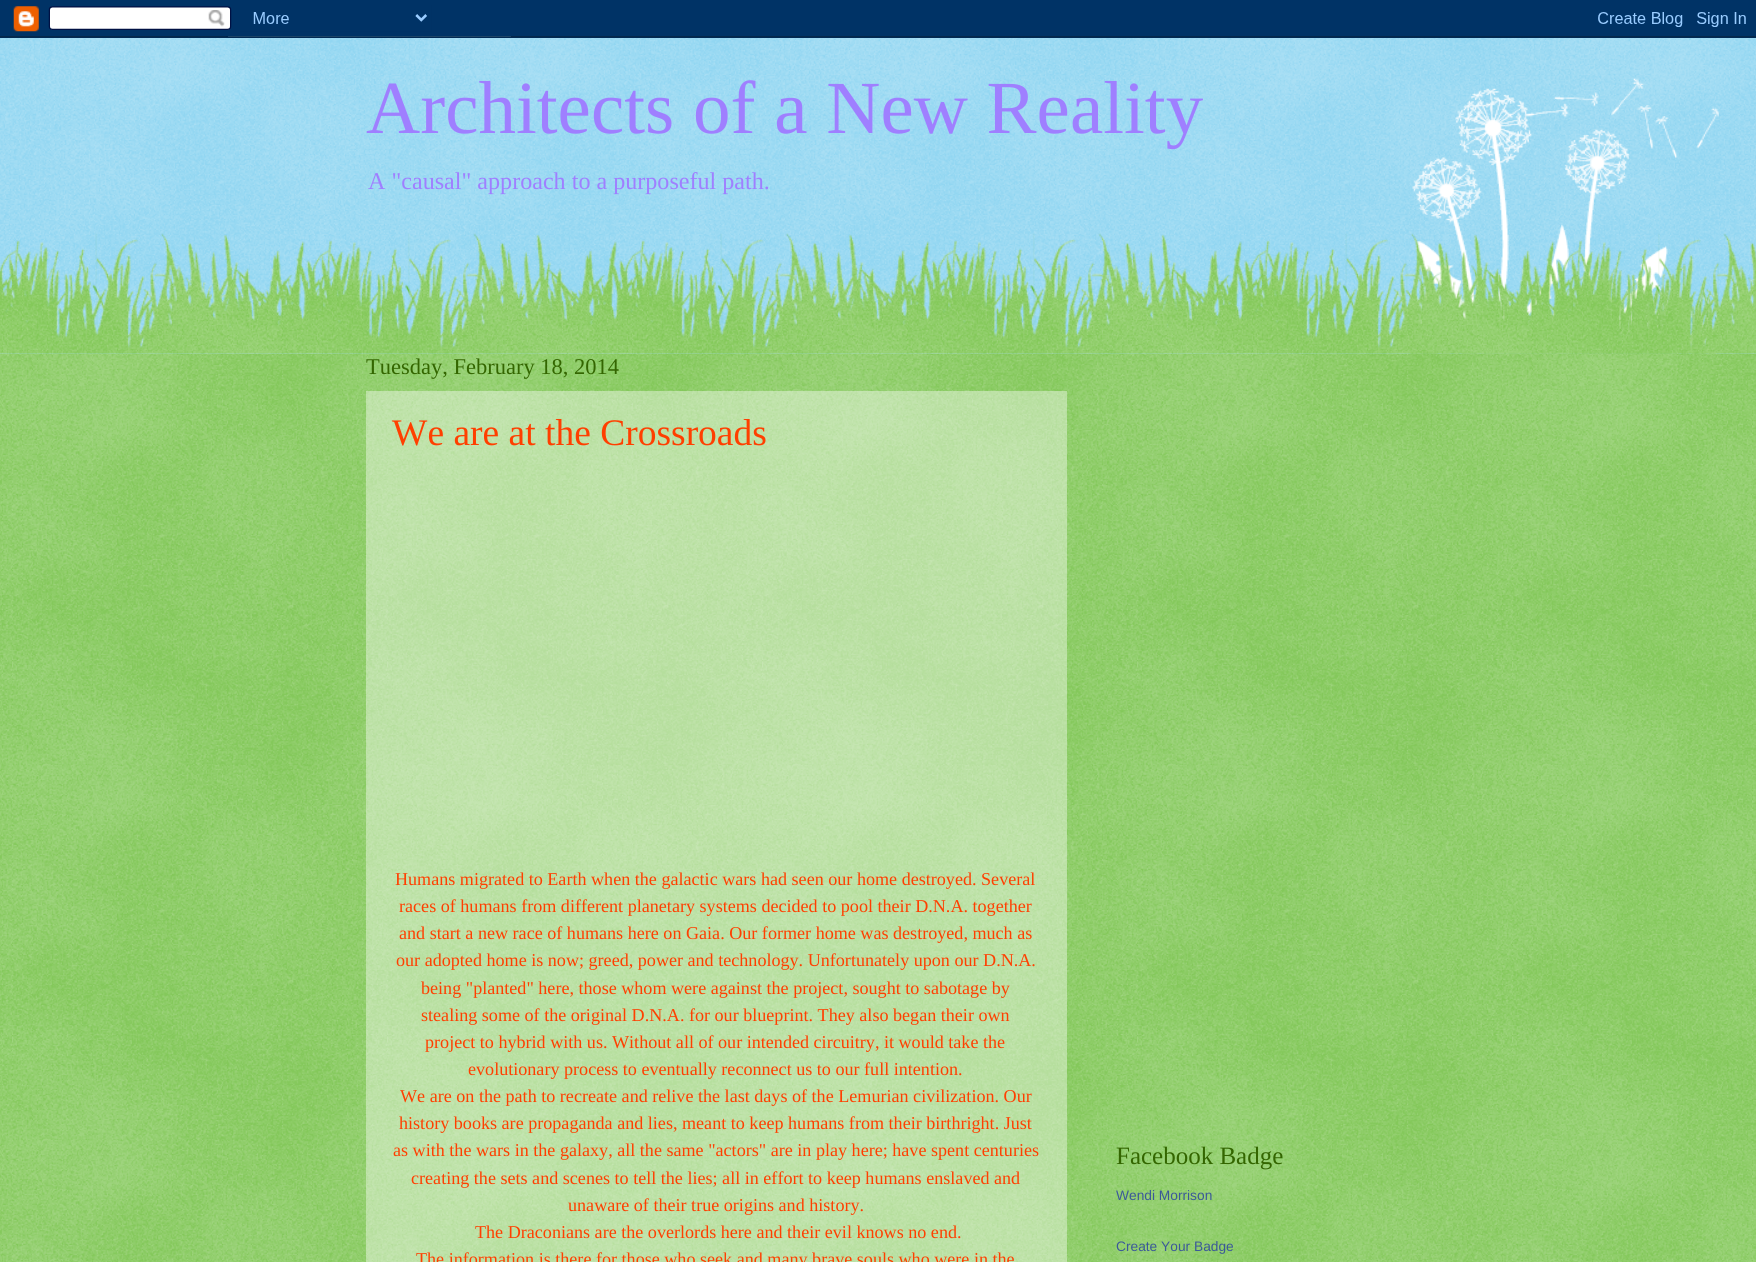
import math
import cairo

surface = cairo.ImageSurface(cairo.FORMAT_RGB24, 1756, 1262)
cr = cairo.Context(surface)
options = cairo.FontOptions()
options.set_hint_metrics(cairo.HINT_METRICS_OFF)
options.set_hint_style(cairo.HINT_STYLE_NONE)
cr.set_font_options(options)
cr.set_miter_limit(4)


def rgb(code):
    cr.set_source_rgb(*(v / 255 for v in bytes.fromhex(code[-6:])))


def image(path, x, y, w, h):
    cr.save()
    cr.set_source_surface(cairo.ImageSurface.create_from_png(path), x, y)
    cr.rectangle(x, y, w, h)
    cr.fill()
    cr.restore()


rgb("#77ccee")
cr.paint()
image("img/1.png", 0, 36, 1756, 318)
image("img/2.png", 0, 0, 1756, 38)
rgb("#66bb33")
cr.rectangle(0, 354, 1756, 908)
cr.fill()
image("img/3.png", 0, 353, 1756, 909)
image("img/4.png", 1406, 78, 313, 276)
image("img/5.png", 0, 233, 1756, 121)
cr.set_source_rgba(1, 1, 1, 0.4)
cr.rectangle(366, 391, 701, 871)
cr.fill()
cr.select_font_face("Liberation Serif")
cr.set_font_size(75)
rgb("#9f7fff")
cr.move_to(366, 133)
cr.show_text("Architects of a New Reality")
cr.set_font_size(24.1)
cr.move_to(368, 189)
cr.show_text("A \"causal\" approach to a purposeful path.")
cr.set_font_size(22.5)
rgb("#336600")
cr.move_to(366, 374)
cr.show_text("Tuesday, February 18, 2014")
cr.set_font_size(37.5)
rgb("#ff3f00")
cr.move_to(392, 445)
cr.show_text("We are at the Crossroads")
cr.set_font_size(18.1)
for x, y, s in [
    (395, 885, "Humans migrated to Earth when the galactic wars had seen our home destroyed. Several"),
    (399, 912, "races of humans from different planetary systems decided to pool their D.N.A. together"),
    (399, 939, "and start a new race of humans here on Gaia. Our former home was destroyed, much as"),
    (396, 966, "our adopted home is now; greed, power and technology. Unfortunately upon our D.N.A."),
    (421, 994, "being \"planted\" here, those whom were against the project, sought to sabotage by"),
    (421, 1021, "stealing some of the original D.N.A. for our blueprint. They also began their own"),
    (425, 1048, "project to hybrid with us. Without all of our intended circuitry, it would take the"),
    (468, 1075, "evolutionary process to eventually reconnect us to our full intention."),
    (400, 1102, "We are on the path to recreate and relive the last days of the Lemurian civilization. Our"),
    (399, 1129, "history books are propaganda and lies, meant to keep humans from their birthright. Just"),
    (393, 1156, "as with the wars in the galaxy, all the same \"actors\" are in play here; have spent centuries"),
    (411, 1184, "creating the sets and scenes to tell the lies; all in effort to keep humans enslaved and"),
    (568, 1211, "unaware of their true origins and history."),
    (475, 1238, "The Draconians are the overlords here and their evil knows no end."),
    (416, 1265, "The information is there for those who seek and many brave souls who were in the"),
]:
    cr.move_to(x, y)
    cr.show_text(s)
cr.set_font_size(25)
rgb("#336600")
cr.move_to(1116, 1164)
cr.show_text("Facebook Badge")
cr.select_font_face("Liberation Sans")
cr.set_font_size(13.75)
rgb("#3b5998")
cr.move_to(1116, 1200)
cr.show_text("Wendi Morrison")
cr.move_to(1116, 1251)
cr.show_text("Create Your Badge")
surface.write_to_png("page.png")
